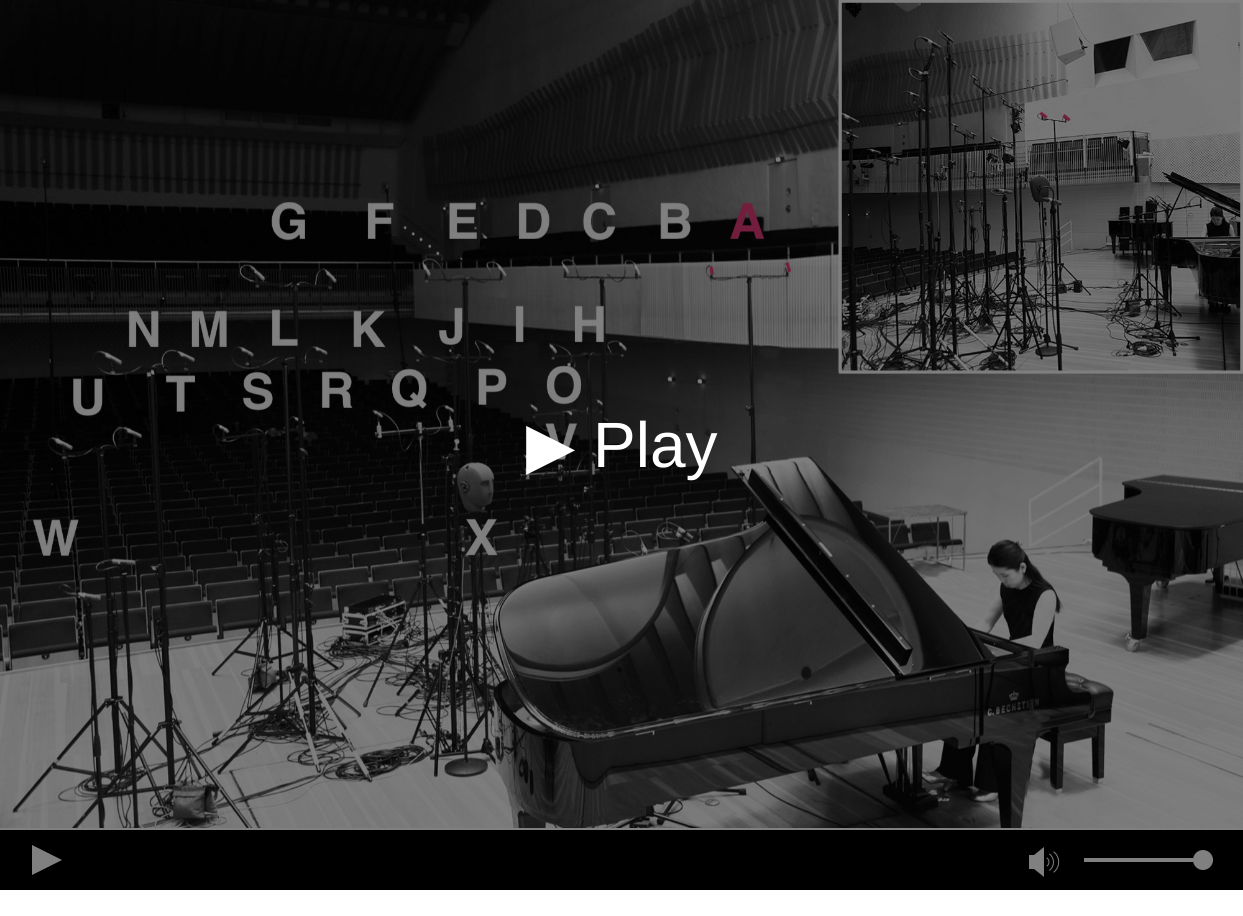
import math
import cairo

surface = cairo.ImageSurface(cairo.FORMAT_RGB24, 1243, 916)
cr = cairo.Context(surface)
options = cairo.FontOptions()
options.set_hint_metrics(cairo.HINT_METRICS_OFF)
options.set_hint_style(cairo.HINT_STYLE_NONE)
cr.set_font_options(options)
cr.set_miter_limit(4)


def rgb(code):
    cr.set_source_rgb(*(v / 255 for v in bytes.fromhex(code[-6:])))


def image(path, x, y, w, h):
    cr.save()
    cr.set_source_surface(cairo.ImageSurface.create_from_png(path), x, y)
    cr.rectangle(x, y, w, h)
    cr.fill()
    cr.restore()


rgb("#ffffff")
cr.paint()
image("img/1.png", 0, 0, 1243, 828)
rgb("#000000")
cr.rectangle(0, 830, 1243, 60)
cr.fill()
rgb("#808080")
cr.rectangle(0, 828, 1243, 2)
cr.fill()
cr.new_path()
cr.move_to(32, 860)
cr.line_to(32, 845)
cr.line_to(62, 860)
cr.line_to(32, 875)
cr.close_path()
cr.fill()
image("img/2.png", 1029, 847, 31, 30)
cr.rectangle(1084, 858, 129, 4)
cr.fill()
cr.arc(1203, 860, 10, 0, 2 * math.pi)
cr.fill()
cr.select_font_face("DejaVu Sans")
cr.set_font_size(64)
rgb("#ffffff")
cr.move_to(526, 467)
cr.show_text("▶")
cr.select_font_face("Liberation Sans")
cr.move_to(593, 467)
cr.show_text("Play")
surface.write_to_png("page.png")
